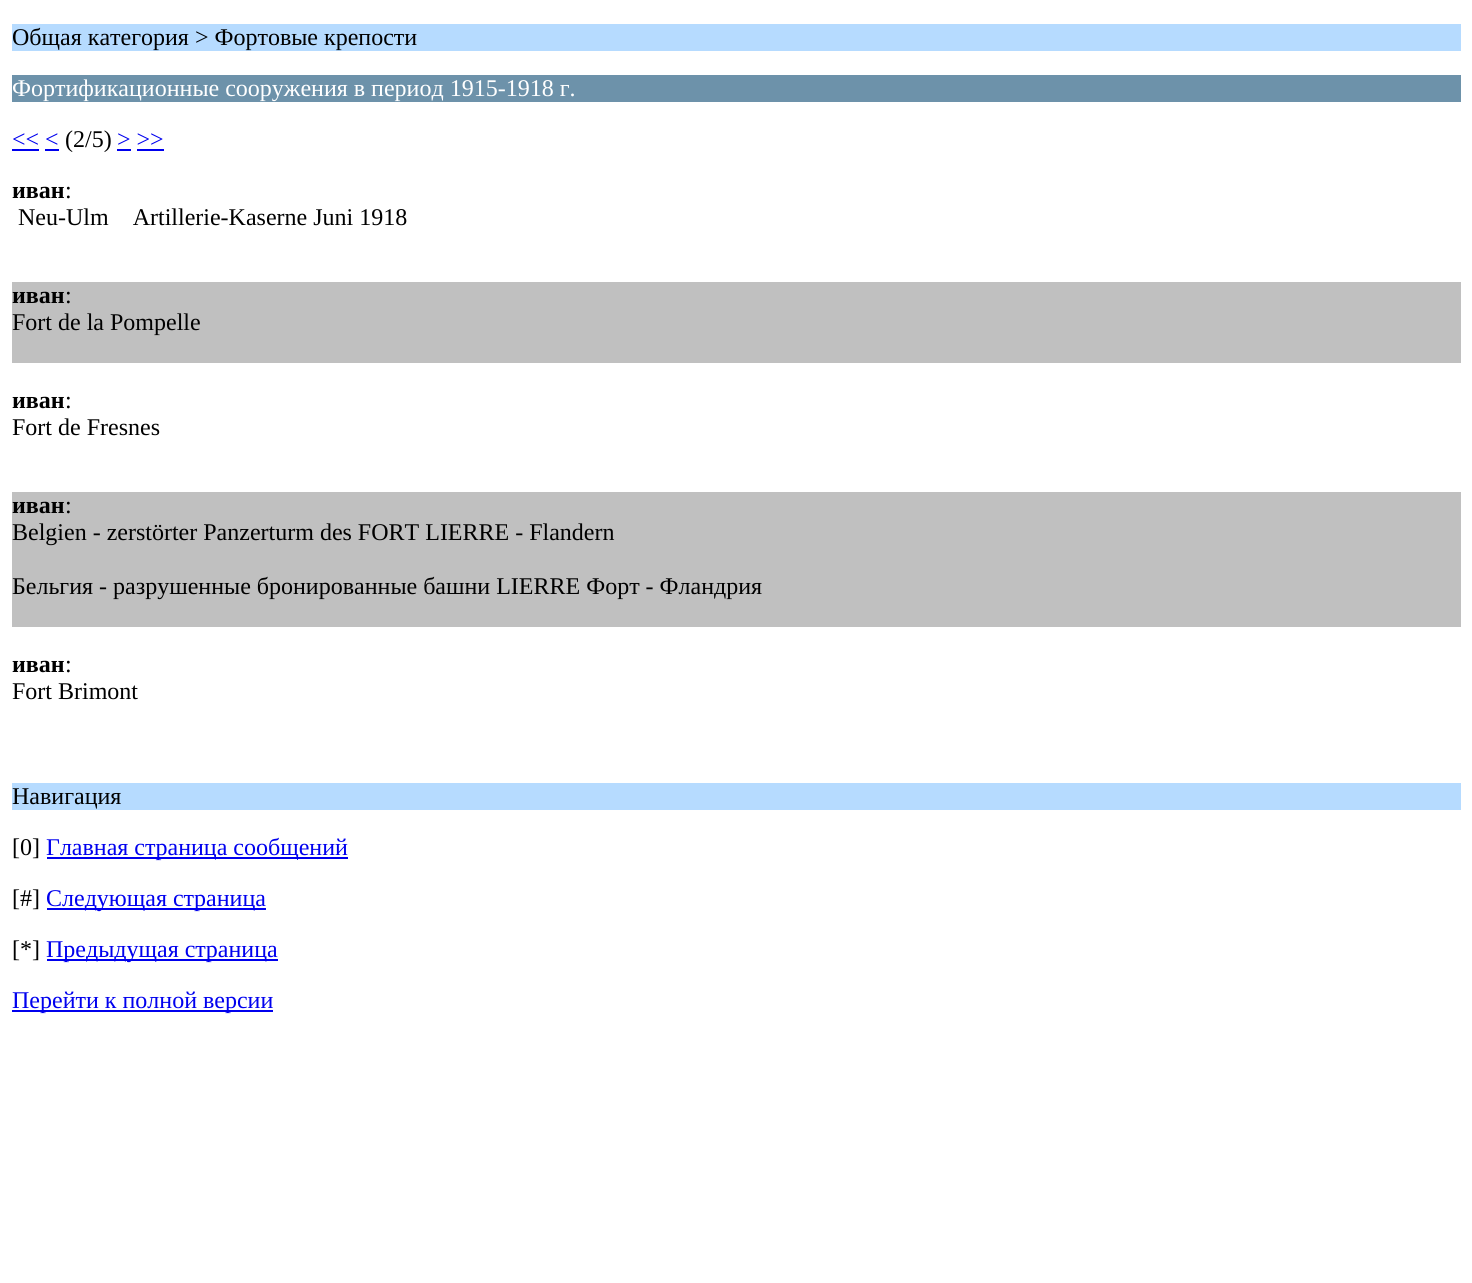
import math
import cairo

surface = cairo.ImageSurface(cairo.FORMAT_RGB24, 1472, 1283)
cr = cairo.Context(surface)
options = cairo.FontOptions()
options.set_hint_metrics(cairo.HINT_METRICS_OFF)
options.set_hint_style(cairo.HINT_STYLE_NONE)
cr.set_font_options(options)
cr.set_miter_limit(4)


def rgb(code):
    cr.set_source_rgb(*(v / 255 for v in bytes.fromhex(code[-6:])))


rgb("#ffffff")
cr.paint()
for x, y, w, h, color in [
    (12, 24, 1449, 27, "#b6dbff"),
    (12, 75, 1449, 27, "#6d92aa"),
    (12, 149, 27, 2, "#0000ee"),
    (117, 149, 14, 2, "#0000ee"),
    (45, 149, 14, 2, "#0000ee"),
    (137, 149, 27, 2, "#0000ee"),
    (12, 282, 1449, 81, "#c0c0c0"),
    (12, 492, 1449, 135, "#c0c0c0"),
    (12, 783, 1449, 27, "#b6dbff"),
    (47, 857, 301, 2, "#0000ee"),
    (47, 908, 219, 2, "#0000ee"),
    (47, 959, 231, 2, "#0000ee"),
    (12, 1010, 261, 2, "#0000ee"),
]:
    rgb(color)
    cr.rectangle(x, y, w, h)
    cr.fill()
cr.select_font_face("Liberation Serif")
cr.set_font_size(24)
rgb("#000000")
cr.move_to(12, 45)
cr.show_text("Общая категория > Фортовые крепости")
rgb("#ffffff")
cr.move_to(12, 96)
cr.show_text("Фортификационные сооружения в период 1915-1918 г.")
rgb("#0000ee")
cr.move_to(12, 147)
cr.show_text("<< <")
rgb("#000000")
cr.move_to(65, 147)
cr.show_text("(2/5)")
rgb("#0000ee")
cr.move_to(117, 147)
cr.show_text("> >>")
cr.select_font_face("Liberation Serif", cairo.FONT_SLANT_NORMAL, cairo.FONT_WEIGHT_BOLD)
rgb("#000000")
cr.move_to(12, 198)
cr.show_text("иван")
cr.select_font_face("Liberation Serif")
cr.move_to(65, 198)
cr.show_text(":")
cr.move_to(18, 225)
cr.show_text("Neu-Ulm    Artillerie-Kaserne Juni 1918")
cr.select_font_face("Liberation Serif", cairo.FONT_SLANT_NORMAL, cairo.FONT_WEIGHT_BOLD)
cr.move_to(12, 303)
cr.show_text("иван")
cr.select_font_face("Liberation Serif")
cr.move_to(65, 303)
cr.show_text(":")
cr.move_to(12, 330)
cr.show_text("Fort de la Pompelle")
cr.select_font_face("Liberation Serif", cairo.FONT_SLANT_NORMAL, cairo.FONT_WEIGHT_BOLD)
cr.move_to(12, 408)
cr.show_text("иван")
cr.select_font_face("Liberation Serif")
cr.move_to(65, 408)
cr.show_text(":")
cr.move_to(12, 435)
cr.show_text("Fort de Fresnes")
cr.select_font_face("Liberation Serif", cairo.FONT_SLANT_NORMAL, cairo.FONT_WEIGHT_BOLD)
cr.move_to(12, 513)
cr.show_text("иван")
cr.select_font_face("Liberation Serif")
for x, y, s in [
    (65, 513, ":"),
    (12, 540, "Belgien - zerstörter Panzerturm des FORT LIERRE - Flandern"),
    (12, 594, "Бельгия - разрушенные бронированные башни LIERRE Форт - Фландрия"),
]:
    cr.move_to(x, y)
    cr.show_text(s)
cr.select_font_face("Liberation Serif", cairo.FONT_SLANT_NORMAL, cairo.FONT_WEIGHT_BOLD)
cr.move_to(12, 672)
cr.show_text("иван")
cr.select_font_face("Liberation Serif")
for x, y, s in [
    (65, 672, ":"),
    (12, 699, "Fort Brimont"),
    (12, 804, "Навигация"),
    (12, 855, "[0]"),
]:
    cr.move_to(x, y)
    cr.show_text(s)
rgb("#0000ee")
cr.move_to(46, 855)
cr.show_text("Главная страница сообщений")
rgb("#000000")
cr.move_to(12, 906)
cr.show_text("[#]")
rgb("#0000ee")
cr.move_to(46, 906)
cr.show_text("Следующая страница")
rgb("#000000")
cr.move_to(12, 957)
cr.show_text("[*]")
rgb("#0000ee")
cr.move_to(46, 957)
cr.show_text("Предыдущая страница")
cr.move_to(12, 1008)
cr.show_text("Перейти к полной версии")
surface.write_to_png("page.png")
